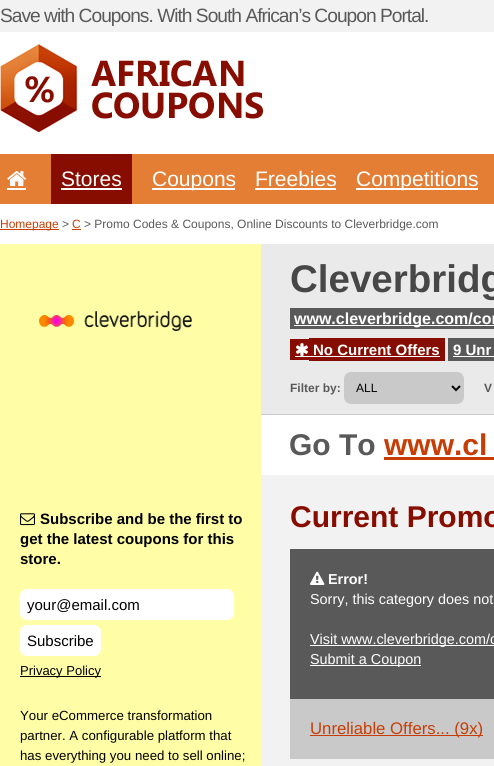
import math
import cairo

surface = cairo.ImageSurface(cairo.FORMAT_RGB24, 494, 766)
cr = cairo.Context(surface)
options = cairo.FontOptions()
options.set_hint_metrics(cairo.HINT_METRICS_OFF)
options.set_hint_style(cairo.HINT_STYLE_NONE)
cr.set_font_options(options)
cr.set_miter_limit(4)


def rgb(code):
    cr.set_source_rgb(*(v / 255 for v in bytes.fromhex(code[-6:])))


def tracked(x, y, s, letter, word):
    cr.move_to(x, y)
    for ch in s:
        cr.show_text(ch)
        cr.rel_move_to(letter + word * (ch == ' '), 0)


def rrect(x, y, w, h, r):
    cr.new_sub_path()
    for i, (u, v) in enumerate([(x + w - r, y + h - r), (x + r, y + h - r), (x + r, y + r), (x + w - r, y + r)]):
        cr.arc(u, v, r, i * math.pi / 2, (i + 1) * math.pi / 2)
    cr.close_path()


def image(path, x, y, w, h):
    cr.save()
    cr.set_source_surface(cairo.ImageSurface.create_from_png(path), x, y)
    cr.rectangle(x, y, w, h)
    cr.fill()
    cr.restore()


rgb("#f2f2f2")
cr.paint()
rgb("#ffffff")
cr.rectangle(0, 32, 494, 122)
cr.fill()
image("img/1.png", 0, 44, 263, 88)
rgb("#e47e34")
cr.rectangle(0, 154, 494, 50)
cr.fill()
image("img/2.png", 7, 171, 19, 15)
for x, y, w, h, color in [
    (7, 188, 19, 2, "#ffffff"),
    (51, 154, 81, 50, "#870d00"),
    (61, 188, 61, 2, "#ffffff"),
    (152, 188, 83, 2, "#ffffff"),
    (255, 188, 81, 2, "#ffffff"),
    (356, 188, 122, 2, "#ffffff"),
    (0, 204, 494, 40, "#ffffff"),
    (0, 229, 59, 1, "#c63e05"),
    (72, 229, 9, 1, "#c63e05"),
    (261, 244, 233, 170, "#eaeaea"),
    (261, 414, 233, 1, "#c9c9c9"),
    (0, 244, 261, 522, "#fffea6"),
]:
    rgb(color)
    cr.rectangle(x, y, w, h)
    cr.fill()
image("img/3.png", 39, 311, 153, 20)
for x, y, w, h, color in [
    (290, 308, 204, 21, "#595959"),
    (294, 325, 200, 1, "#ffffff"),
    (290, 339, 19, 21, "#870d00"),
]:
    rgb(color)
    cr.rectangle(x, y, w, h)
    cr.fill()
image("img/4.png", 296, 343, 12, 13)
for x, y, w, h, color in [
    (309, 338, 136, 23, "#870d00"),
    (295, 356, 145, 1, "#ffffff"),
    (448, 338, 46, 23, "#595959"),
    (453, 356, 41, 1, "#ffffff"),
]:
    rgb(color)
    cr.rectangle(x, y, w, h)
    cr.fill()
rgb("#c9c9c9")
rrect(344, 372, 120, 32, 7)
cr.fill()
cr.new_path()
cr.move_to(452, 386)
cr.line_to(456, 390)
cr.line_to(460, 386)
rgb("#000000")
cr.stroke()
rgb("#ffffff")
cr.rectangle(261, 415, 233, 60)
cr.fill()
rgb("#c63e05")
cr.rectangle(384, 457, 110, 3)
cr.fill()
image("img/5.png", 20, 513, 15, 13)
rgb("#ffffff")
rrect(20.5, 589.5, 213, 30, 6.5)
cr.fill_preserve()
cr.set_line_width(1)
cr.stroke()
rrect(20, 625, 81, 31, 7)
cr.fill()
rgb("#000000")
cr.rectangle(20, 676, 81, 1)
cr.fill()
rgb("#595959")
cr.rectangle(290, 549, 204, 150)
cr.fill()
image("img/6.png", 310, 571, 15, 14)
for x, y, w, h, color in [
    (310, 645, 184, 1, "#ffffff"),
    (310, 665, 111, 1, "#ffffff"),
    (290, 699, 204, 60, "#c9c9c9"),
    (310, 735, 173, 1, "#c63e05"),
]:
    rgb(color)
    cr.rectangle(x, y, w, h)
    cr.fill()
cr.select_font_face("Liberation Sans")
cr.set_font_size(19.2)
rgb("#595959")
tracked(0, 22, "Save with Coupons. With South African’s Coupon Portal.", -1, 0)
cr.set_font_size(21)
rgb("#ffffff")
for x, y, s in [
    (61, 186, "Stores"),
    (152, 186, "Coupons"),
    (255, 186, "Freebies"),
    (356, 186, "Competitions"),
]:
    cr.move_to(x, y)
    cr.show_text(s)
cr.set_font_size(12)
rgb("#c63e05")
cr.move_to(0, 228)
cr.show_text("Homepage")
rgb("#595959")
cr.move_to(62, 228)
cr.show_text(">")
rgb("#c63e05")
cr.move_to(72, 228)
cr.show_text("C")
rgb("#595959")
cr.move_to(84, 228)
cr.show_text("> Promo Codes & Coupons, Online Discounts to Cleverbridge.com")
cr.select_font_face("Liberation Sans", cairo.FONT_SLANT_NORMAL, cairo.FONT_WEIGHT_BOLD)
cr.set_font_size(38.5)
rgb("#474747")
cr.move_to(290, 292)
cr.show_text("Cleverbridg")
cr.set_font_size(16)
rgb("#ffffff")
cr.move_to(294, 324)
cr.show_text("www.cleverbridge.com/cor")
cr.set_font_size(15)
cr.move_to(313, 355)
cr.show_text("No Current Offers")
cr.move_to(453, 355)
cr.show_text("9 Unr")
cr.set_font_size(12)
rgb("#595959")
cr.move_to(290, 392)
cr.show_text("Filter by:")
cr.select_font_face("Liberation Sans")
rgb("#000000")
cr.move_to(356, 392)
cr.show_text("ALL")
cr.select_font_face("Liberation Sans", cairo.FONT_SLANT_NORMAL, cairo.FONT_WEIGHT_BOLD)
rgb("#595959")
cr.move_to(484, 392)
cr.show_text("V")
cr.set_font_size(30)
cr.move_to(289, 455)
cr.show_text("Go To")
rgb("#c63e05")
cr.move_to(384, 455)
cr.show_text("www.cl")
cr.set_font_size(15)
rgb("#000000")
for x, y, s in [
    (40, 524, "Subscribe and be the first to"),
    (20, 544, "get the latest coupons for this"),
    (20, 564, "store."),
]:
    cr.move_to(x, y)
    cr.show_text(s)
cr.select_font_face("Liberation Sans")
cr.move_to(27, 610)
cr.show_text("your@email.com")
cr.move_to(27, 646)
cr.show_text("Subscribe")
cr.set_font_size(13)
cr.move_to(20, 675)
cr.show_text("Privacy Policy")
cr.set_font_size(13.25)
for x, y, s in [
    (20, 720, "Your eCommerce transformation"),
    (20, 740, "partner. A configurable platform that"),
    (20, 760, "has everything you need to sell online;"),
]:
    cr.move_to(x, y)
    cr.show_text(s)
cr.select_font_face("Liberation Sans", cairo.FONT_SLANT_NORMAL, cairo.FONT_WEIGHT_BOLD)
cr.set_font_size(30)
rgb("#870d00")
cr.move_to(290, 527)
cr.show_text("Current Promo")
cr.set_font_size(14.4)
rgb("#ffffff")
cr.move_to(328, 584)
cr.show_text("Error!")
cr.select_font_face("Liberation Sans")
for x, y, s in [
    (310, 604, "Sorry, this category does not"),
    (310, 644, "Visit www.cleverbridge.com/c"),
    (310, 664, "Submit a Coupon"),
]:
    cr.move_to(x, y)
    cr.show_text(s)
cr.set_font_size(16.75)
rgb("#c63e05")
cr.move_to(310, 734)
cr.show_text("Unreliable Offers... (9x)")
surface.write_to_png("page.png")
